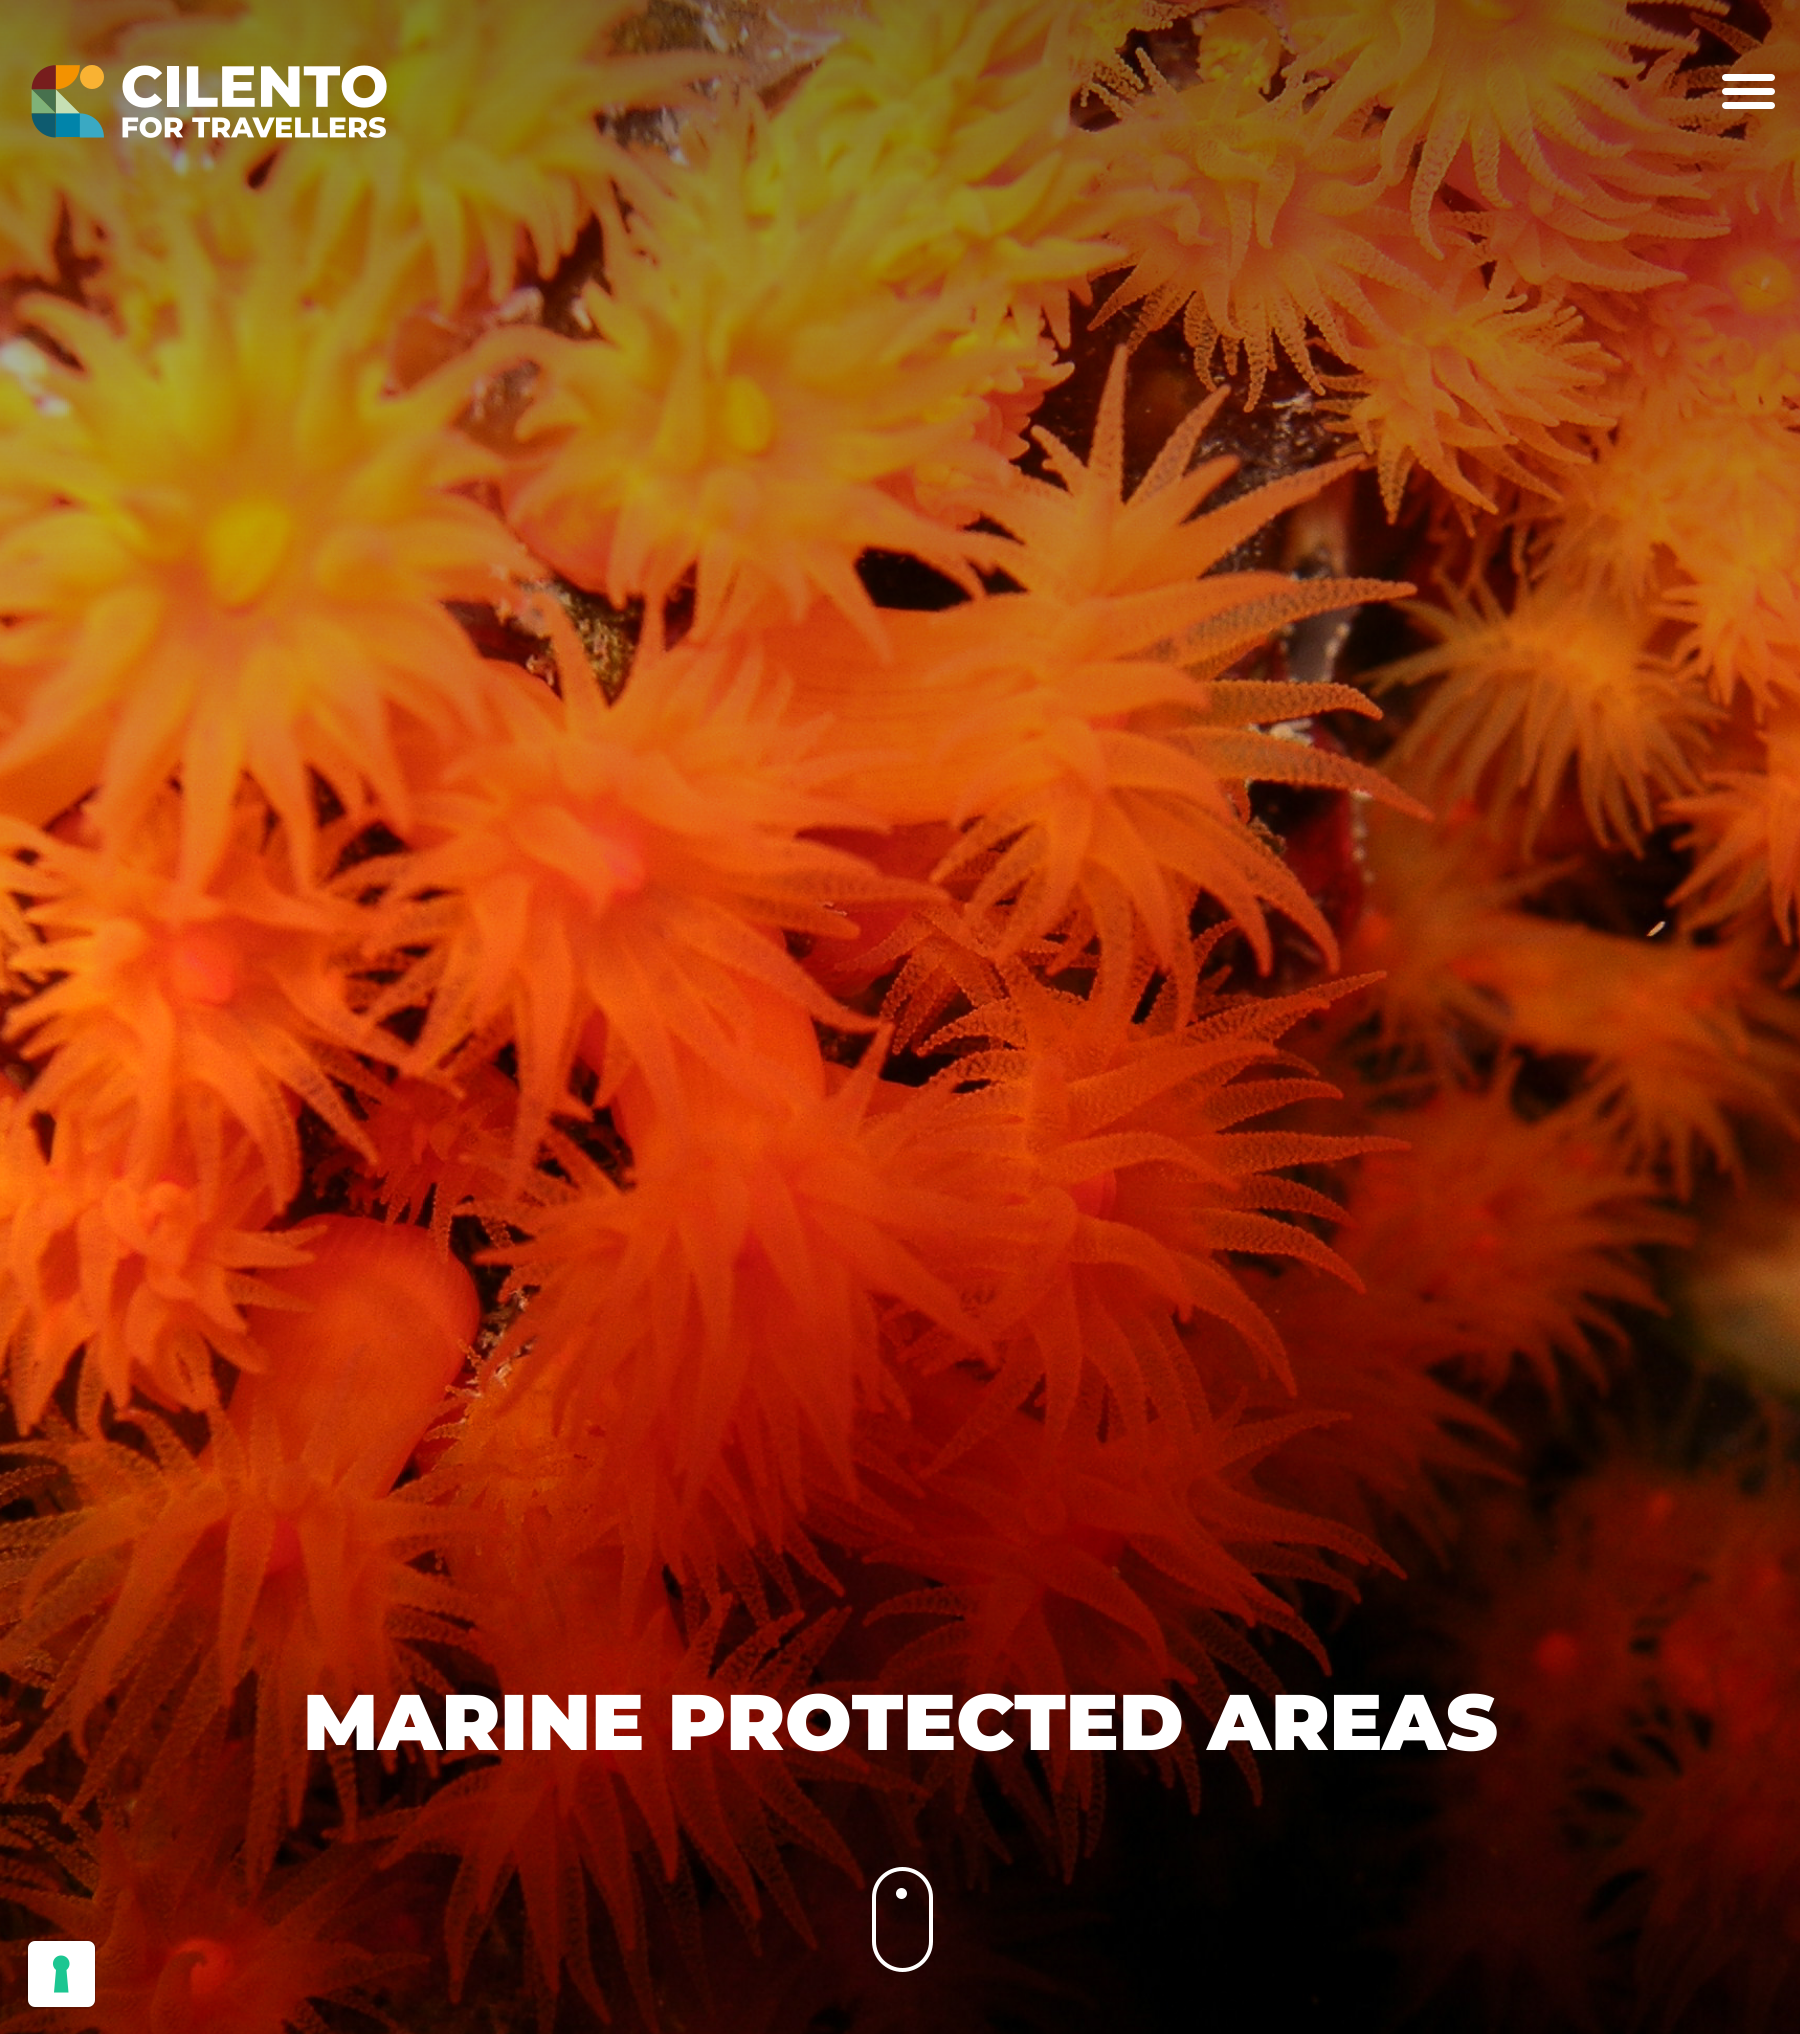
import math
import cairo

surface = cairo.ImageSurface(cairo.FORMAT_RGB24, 1800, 2034)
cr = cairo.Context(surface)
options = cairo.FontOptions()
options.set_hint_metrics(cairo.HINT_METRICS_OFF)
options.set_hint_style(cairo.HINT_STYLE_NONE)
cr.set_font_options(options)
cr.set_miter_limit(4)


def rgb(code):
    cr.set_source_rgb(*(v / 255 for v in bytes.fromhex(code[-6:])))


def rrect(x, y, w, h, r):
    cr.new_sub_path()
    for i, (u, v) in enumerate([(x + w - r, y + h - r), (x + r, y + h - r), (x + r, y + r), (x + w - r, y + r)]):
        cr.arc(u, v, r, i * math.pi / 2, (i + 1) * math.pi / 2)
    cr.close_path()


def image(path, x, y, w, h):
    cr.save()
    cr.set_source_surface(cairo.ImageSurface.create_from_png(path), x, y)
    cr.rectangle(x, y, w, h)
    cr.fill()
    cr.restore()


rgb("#ffffff")
cr.paint()
image("img/2.png", 0, 0, 1800, 2034)
image("img/1.png", 31, 65, 356, 73)
rgb("#ffffff")
rrect(1722, 88, 53, 7, 3.5)
cr.fill()
rrect(1722, 74, 53, 7, 3.5)
cr.fill()
rrect(1722, 102, 53, 7, 3.5)
cr.fill()
rrect(874, 1869, 57, 101, 28.5)
cr.set_line_width(4)
cr.stroke()
cr.arc(901.5, 1893.5, 5.5, 0, 2 * math.pi)
cr.fill()
rrect(27, 1940, 68, 68, 8)
cr.set_source_rgba(0, 0, 0, 0.15)
cr.set_line_width(2)
cr.stroke()
rgb("#ffffff")
rrect(28, 1941, 67, 66, 7)
cr.fill()
rgb("#1cc691")
cr.set_fill_rule(cairo.FILL_RULE_EVEN_ODD)
cr.new_path()
cr.move_to(61, 1955.5)
cr.curve_to(69, 1955.5, 72.5, 1965, 66.5, 1970)
cr.line_to(68.5, 1992.5)
cr.line_to(54, 1992.5)
cr.line_to(56, 1970)
cr.curve_to(50, 1965, 53.5, 1955.5, 61, 1955.5)
cr.close_path()
cr.fill()
cr.select_font_face("Montserrat Black")
cr.set_font_size(78.75)
rgb("#ffffff")
cr.move_to(303, 1750)
cr.show_text("MARINE PROTECTED AREAS")
surface.write_to_png("page.png")
